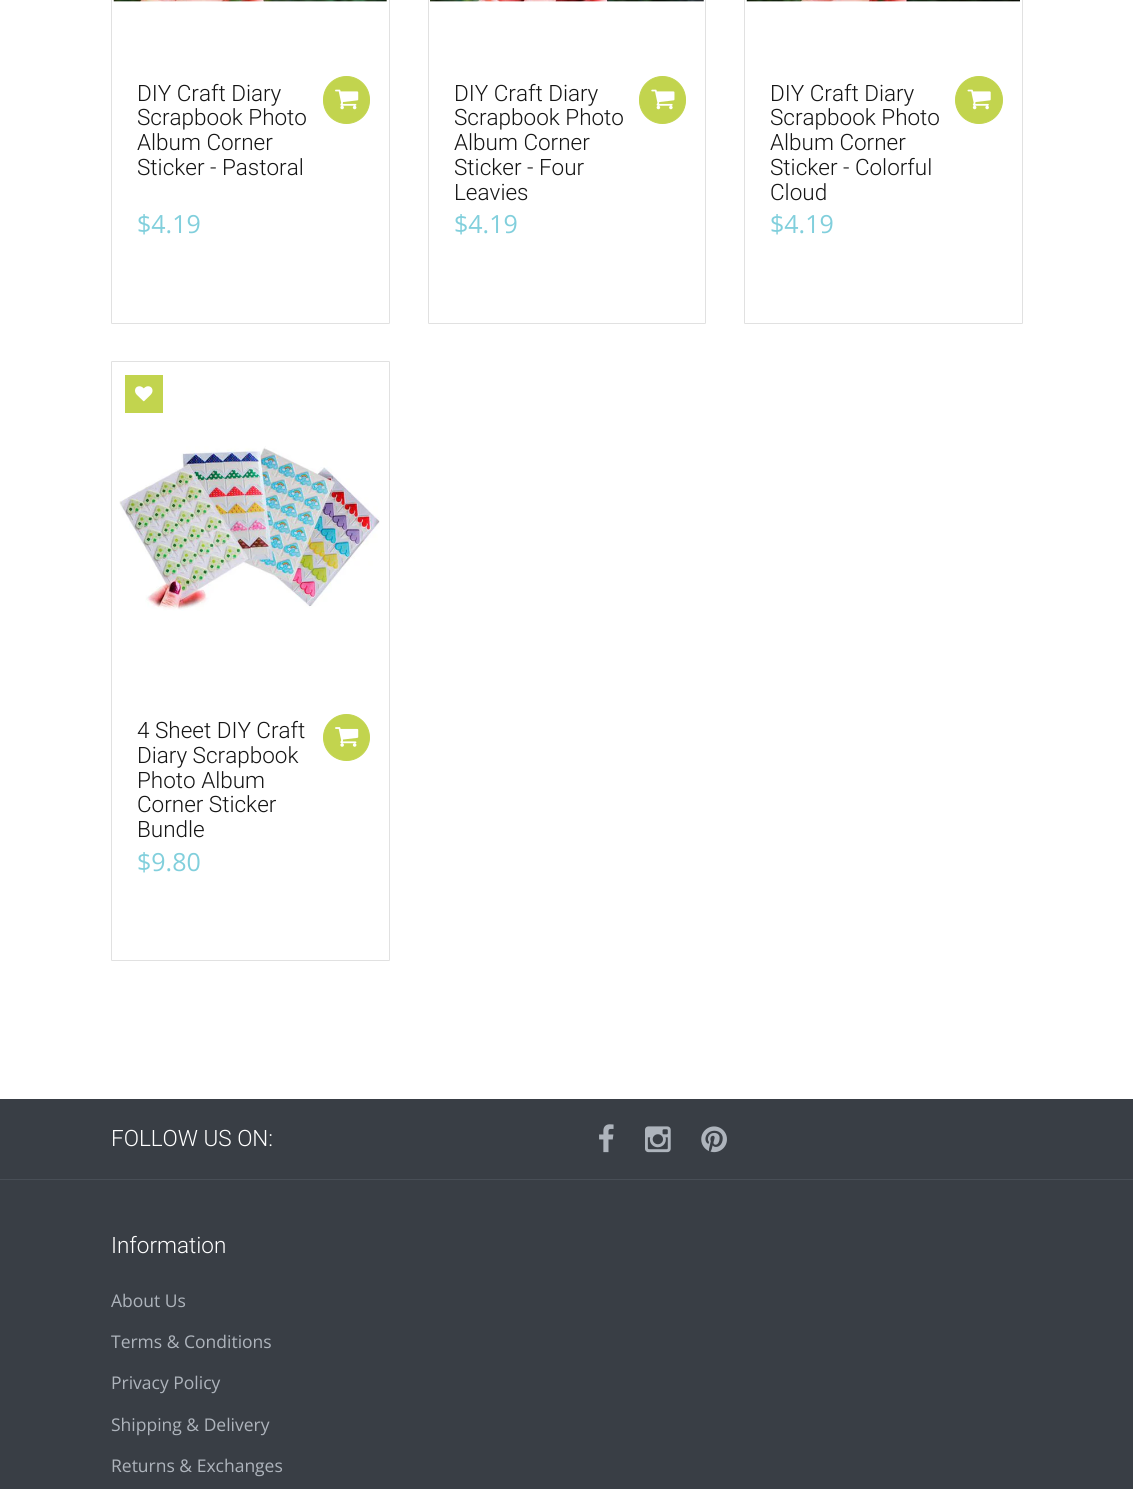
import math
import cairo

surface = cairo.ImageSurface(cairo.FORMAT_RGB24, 1133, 1489)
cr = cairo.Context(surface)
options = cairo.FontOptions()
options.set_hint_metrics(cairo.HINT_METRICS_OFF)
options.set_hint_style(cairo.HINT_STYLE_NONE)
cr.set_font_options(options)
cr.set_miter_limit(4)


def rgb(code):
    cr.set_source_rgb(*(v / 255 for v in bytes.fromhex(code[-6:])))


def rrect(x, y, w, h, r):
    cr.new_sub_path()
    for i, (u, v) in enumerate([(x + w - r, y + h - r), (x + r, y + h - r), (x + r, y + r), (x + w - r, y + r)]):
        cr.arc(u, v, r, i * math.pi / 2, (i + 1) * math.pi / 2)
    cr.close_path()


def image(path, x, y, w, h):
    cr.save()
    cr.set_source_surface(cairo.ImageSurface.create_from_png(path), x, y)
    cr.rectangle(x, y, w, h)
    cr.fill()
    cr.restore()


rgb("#ffffff")
cr.paint()
rrect(111.5, -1.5, 278, 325, 0.5)
rgb("#e1e1e1")
cr.set_line_width(1)
cr.stroke()
image("img/1.png", 113, 0, 274, 2)
rgb("#c2d44e")
rrect(323.5, 76.5, 46, 47, 23)
cr.fill_preserve()
cr.stroke()
image("img/2.png", 335, 89, 24, 21)
rrect(428.5, -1.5, 277, 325, 0.5)
rgb("#e1e1e1")
cr.stroke()
image("img/3.png", 430, 0, 274, 2)
rgb("#c2d44e")
rrect(639.5, 76.5, 46, 47, 23)
cr.fill_preserve()
cr.stroke()
image("img/4.png", 651, 89, 24, 21)
rrect(744.5, -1.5, 278, 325, 0.5)
rgb("#e1e1e1")
cr.stroke()
image("img/5.png", 746, 0, 274, 2)
rgb("#c2d44e")
cr.arc(979, 100, 23.5, 0, 2 * math.pi)
cr.fill_preserve()
cr.stroke()
image("img/6.png", 967, 89, 24, 21)
rrect(111.5, 361.5, 278, 599, 0.5)
rgb("#e1e1e1")
cr.stroke()
rgb("#c2d44e")
cr.rectangle(125, 375, 38, 38)
cr.fill()
image("img/7.png", 135, 386, 18, 16)
image("img/8.png", 119, 446, 261, 165)
cr.arc(346.5, 737.5, 23, 0, 2 * math.pi)
cr.fill_preserve()
cr.stroke()
image("img/9.png", 335, 727, 24, 20)
rgb("#393e45")
cr.rectangle(0, 1099, 1133, 390)
cr.fill()
image("img/10.png", 599, 1124, 15, 29)
image("img/11.png", 645, 1126, 26, 27)
image("img/12.png", 701, 1126, 26, 27)
rgb("#484e56")
cr.rectangle(0, 1179, 1133, 1)
cr.fill()
cr.select_font_face("Roboto Light")
cr.set_font_size(22.5)
rgb("#151515")
for x, y, s in [
    (137, 101, "DIY Craft Diary"),
    (137, 125, "Scrapbook Photo"),
    (137, 150, "Album Corner"),
    (137, 175, "Sticker - Pastoral"),
]:
    cr.move_to(x, y)
    cr.show_text(s)
cr.select_font_face("Open Sans")
cr.set_font_size(25)
rgb("#81cfdc")
cr.move_to(137, 233)
cr.show_text("$4.19")
cr.select_font_face("Roboto Light")
cr.set_font_size(22.5)
rgb("#151515")
for x, y, s in [
    (454, 101, "DIY Craft Diary"),
    (454, 125, "Scrapbook Photo"),
    (454, 150, "Album Corner"),
    (454, 175, "Sticker - Four"),
    (454, 200, "Leavies"),
]:
    cr.move_to(x, y)
    cr.show_text(s)
cr.select_font_face("Open Sans")
cr.set_font_size(25)
rgb("#81cfdc")
cr.move_to(454, 233)
cr.show_text("$4.19")
cr.select_font_face("Roboto Light")
cr.set_font_size(22.5)
rgb("#151515")
for x, y, s in [
    (770, 101, "DIY Craft Diary"),
    (770, 125, "Scrapbook Photo"),
    (770, 150, "Album Corner"),
    (770, 175, "Sticker - Colorful"),
    (770, 200, "Cloud"),
]:
    cr.move_to(x, y)
    cr.show_text(s)
cr.select_font_face("Open Sans")
cr.set_font_size(25)
rgb("#81cfdc")
cr.move_to(770, 233)
cr.show_text("$4.19")
cr.select_font_face("Roboto Light")
cr.set_font_size(22.5)
rgb("#151515")
for x, y, s in [
    (137, 738, "4 Sheet DIY Craft"),
    (137, 763, "Diary Scrapbook"),
    (137, 788, "Photo Album"),
    (137, 812, "Corner Sticker"),
    (137, 837, "Bundle"),
]:
    cr.move_to(x, y)
    cr.show_text(s)
cr.select_font_face("Open Sans")
cr.set_font_size(25)
rgb("#81cfdc")
cr.move_to(137, 871)
cr.show_text("$9.80")
cr.select_font_face("Roboto Light")
cr.set_font_size(22.5)
rgb("#ffffff")
cr.move_to(111, 1146)
cr.show_text("FOLLOW US ON:")
cr.move_to(111, 1253)
cr.show_text("Information")
cr.select_font_face("Open Sans")
cr.set_font_size(17.5)
rgb("#aeb4bc")
for x, y, s in [
    (111, 1307, "About Us"),
    (111, 1348, "Terms & Conditions"),
    (111, 1389, "Privacy Policy"),
    (111, 1431, "Shipping & Delivery"),
    (111, 1472, "Returns & Exchanges"),
]:
    cr.move_to(x, y)
    cr.show_text(s)
surface.write_to_png("page.png")
